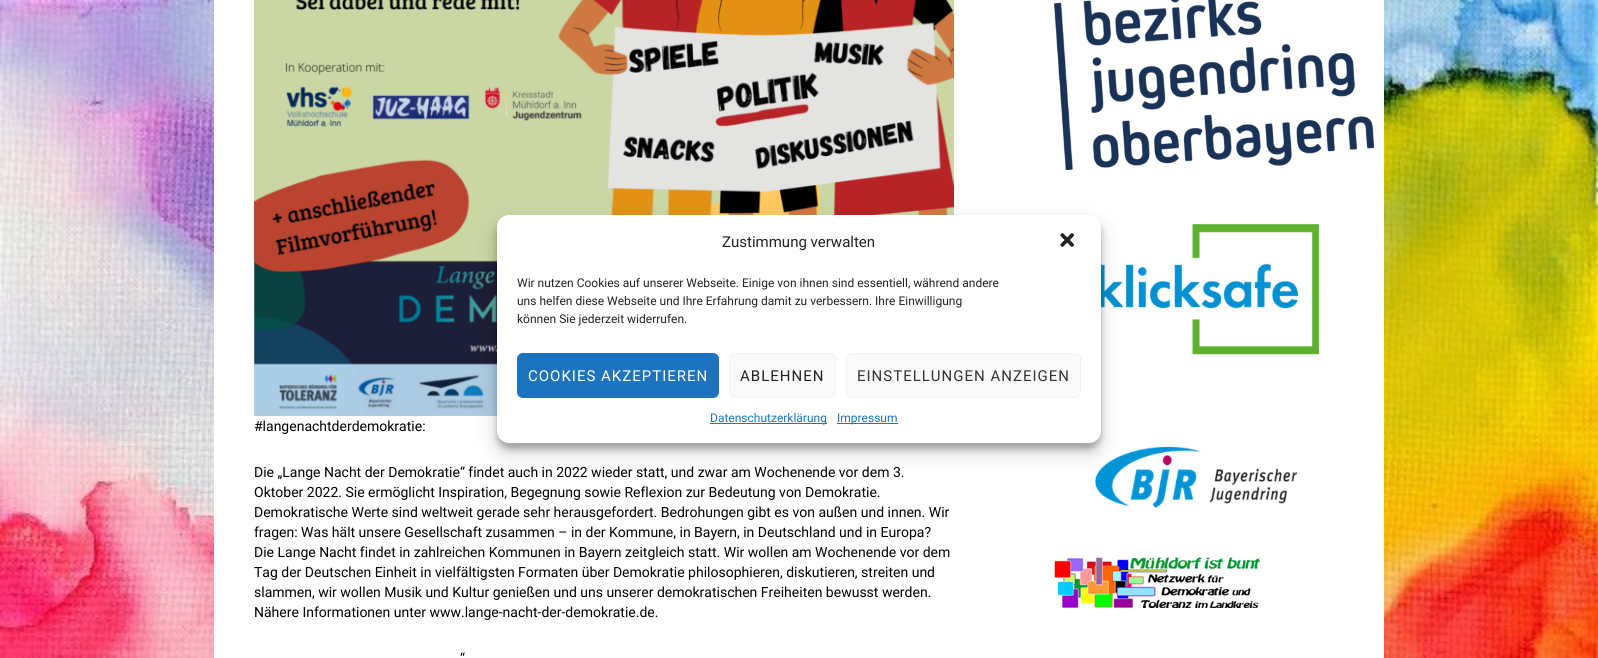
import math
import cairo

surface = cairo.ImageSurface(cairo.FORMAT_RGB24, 1598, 658)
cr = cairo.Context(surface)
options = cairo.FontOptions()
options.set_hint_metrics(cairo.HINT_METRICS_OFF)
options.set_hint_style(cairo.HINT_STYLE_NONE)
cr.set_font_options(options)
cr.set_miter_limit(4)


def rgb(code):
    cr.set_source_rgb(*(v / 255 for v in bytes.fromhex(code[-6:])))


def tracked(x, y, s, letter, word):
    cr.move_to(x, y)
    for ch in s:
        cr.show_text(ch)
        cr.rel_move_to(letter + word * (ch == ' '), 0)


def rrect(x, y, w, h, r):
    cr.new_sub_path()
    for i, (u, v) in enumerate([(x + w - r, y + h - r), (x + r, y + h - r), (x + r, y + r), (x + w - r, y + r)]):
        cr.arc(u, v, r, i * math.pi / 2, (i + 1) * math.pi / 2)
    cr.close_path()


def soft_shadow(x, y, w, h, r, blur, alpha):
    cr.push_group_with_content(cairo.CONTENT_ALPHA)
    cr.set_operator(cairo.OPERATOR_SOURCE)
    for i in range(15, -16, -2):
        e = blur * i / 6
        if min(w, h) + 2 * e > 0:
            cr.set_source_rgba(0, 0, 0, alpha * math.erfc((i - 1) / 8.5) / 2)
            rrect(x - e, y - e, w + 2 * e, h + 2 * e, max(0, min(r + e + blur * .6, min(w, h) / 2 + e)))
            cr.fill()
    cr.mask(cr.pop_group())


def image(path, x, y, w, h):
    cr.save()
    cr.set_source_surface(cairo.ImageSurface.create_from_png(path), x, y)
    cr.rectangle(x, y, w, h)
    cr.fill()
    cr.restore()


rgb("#ffffff")
cr.paint()
image("img/1.png", 0, 0, 1598, 658)
rgb("#ffffff")
cr.rectangle(214, 0, 1170, 658)
cr.fill()
image("img/3.png", 254, 0, 700, 416)
image("img/5.png", 1100, 223, 220, 132)
image("img/6.png", 1095, 446, 203, 62)
rgb("#000000")
soft_shadow(497, 221, 604, 228, 12, 3, 0.23)
soft_shadow(497, 225, 604, 228, 12, 10, 0.19)
rgb("#ffffff")
rrect(497, 215, 604, 228, 12)
cr.fill()
image("img/2.png", 1060, 233, 15, 14)
rgb("#1e73be")
rrect(517.5, 353.5, 201, 44, 5.5)
cr.fill_preserve()
cr.set_line_width(1)
cr.stroke()
rgb("#f9f9f9")
rrect(729.5, 353.5, 106, 44, 5.5)
cr.fill_preserve()
rgb("#f2f2f2")
cr.stroke()
rgb("#f9f9f9")
rrect(846.5, 353.5, 234, 44, 5.5)
cr.fill_preserve()
rgb("#f2f2f2")
cr.stroke()
rgb("#1e73be")
cr.rectangle(710, 423, 117, 1)
cr.fill()
cr.rectangle(837, 423, 61, 1)
cr.fill()
image("img/4.png", 1054, 0, 320, 170)
image("img/7.png", 1054, 557, 206, 51)
cr.select_font_face("Roboto")
cr.set_font_size(15)
rgb("#222222")
cr.move_to(722, 247)
cr.show_text("Zustimmung verwalten")
cr.set_font_size(12)
for x, y, s in [
    (517, 287, "Wir nutzen Cookies auf unserer Webseite. Einige von ihnen sind essentiell, während andere"),
    (517, 305, "uns helfen diese Webseite und Ihre Erfahrung damit zu verbessern. Ihre Einwilligung"),
    (517, 323, "können Sie jederzeit widerrufen."),
]:
    cr.move_to(x, y)
    cr.show_text(s)
cr.set_font_size(15)
rgb("#ffffff")
tracked(528, 381, "COOKIES AKZEPTIEREN", 1, 0)
rgb("#222222")
tracked(740, 381, "ABLEHNEN", 1, 0)
rgb("#333333")
tracked(857, 381, "EINSTELLUNGEN ANZEIGEN", 1, 0)
cr.set_font_size(12)
rgb("#1e73be")
cr.move_to(710, 422)
cr.show_text("Datenschutzerklärung")
cr.move_to(837, 422)
cr.show_text("Impressum")
cr.set_font_size(14)
rgb("#000000")
for x, y, s in [
    (254, 431, "#langenachtderdemokratie:"),
    (254, 477, "Die „Lange Nacht der Demokratie“ findet auch in 2022 wieder statt, und zwar am Wochenende vor dem 3."),
    (254, 497, "Oktober 2022. Sie ermöglicht Inspiration, Begegnung sowie Reflexion zur Bedeutung von Demokratie."),
    (254, 517, "Demokratische Werte sind weltweit gerade sehr herausgefordert. Bedrohungen gibt es von außen und innen. Wir"),
    (254, 537, "fragen: Was hält unsere Gesellschaft zusammen – in der Kommune, in Bayern, in Deutschland und in Europa?"),
    (254, 557, "Die Lange Nacht findet in zahlreichen Kommunen in Bayern zeitgleich statt. Wir wollen am Wochenende vor dem"),
    (254, 577, "Tag der Deutschen Einheit in vielfältigsten Formaten über Demokratie philosophieren, diskutieren, streiten und"),
    (254, 597, "slammen, wir wollen Musik und Kultur genießen und uns unserer demokratischen Freiheiten bewusst werden."),
    (254, 617, "Nähere Informationen unter www.lange-nacht-der-demokratie.de."),
    (460, 663, "“"),
]:
    cr.move_to(x, y)
    cr.show_text(s)
surface.write_to_png("page.png")
